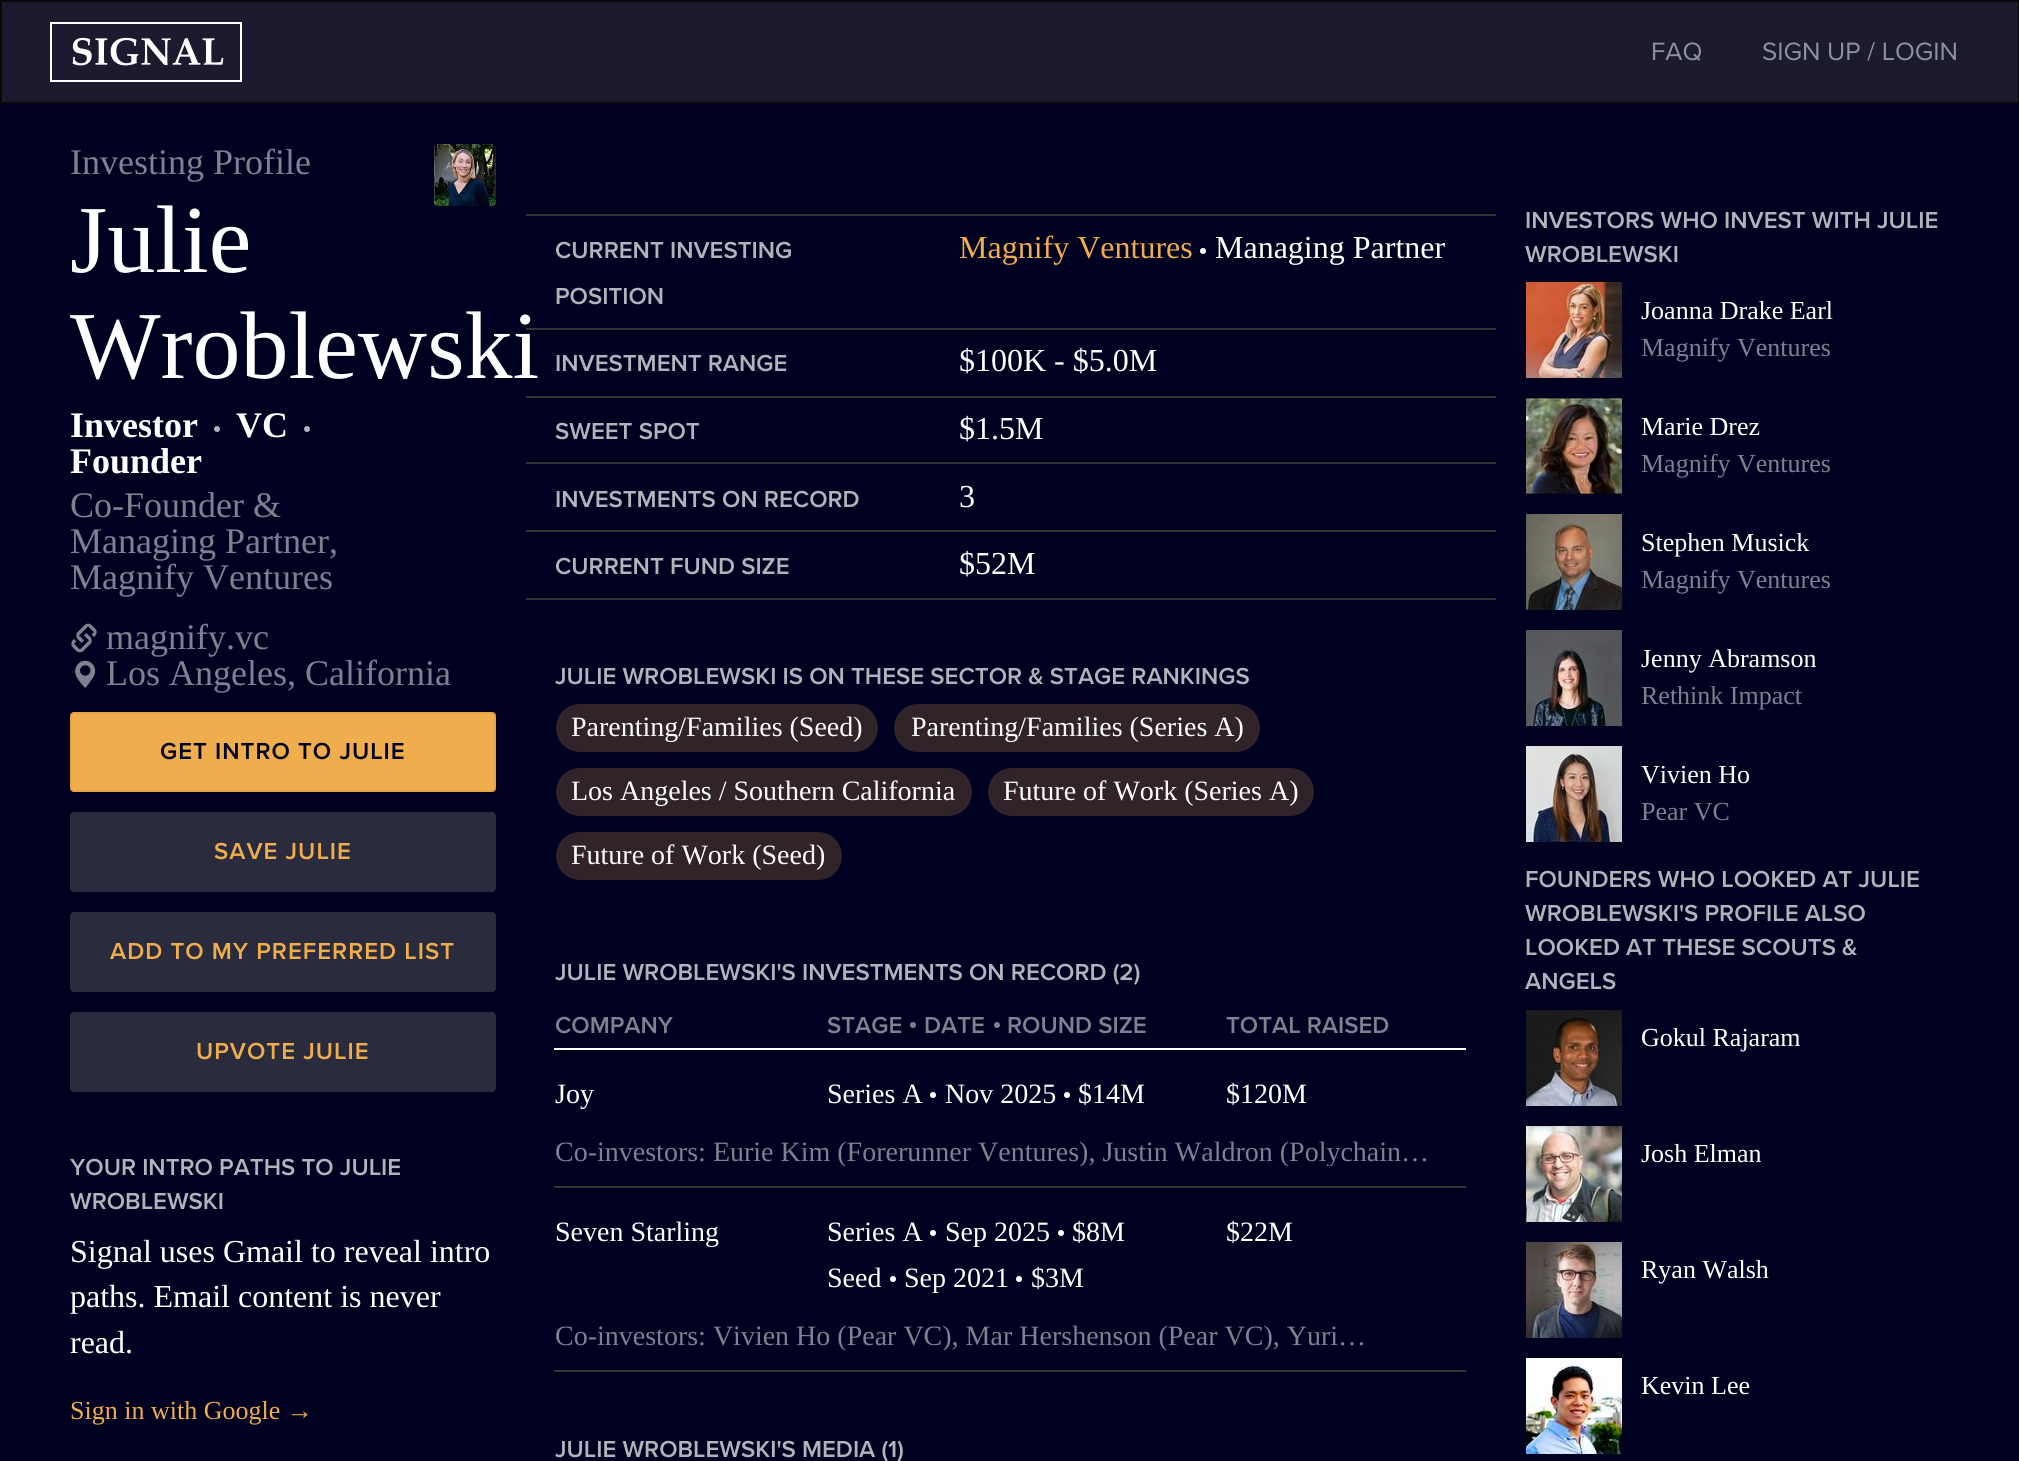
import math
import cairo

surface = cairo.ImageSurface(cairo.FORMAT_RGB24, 2019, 1461)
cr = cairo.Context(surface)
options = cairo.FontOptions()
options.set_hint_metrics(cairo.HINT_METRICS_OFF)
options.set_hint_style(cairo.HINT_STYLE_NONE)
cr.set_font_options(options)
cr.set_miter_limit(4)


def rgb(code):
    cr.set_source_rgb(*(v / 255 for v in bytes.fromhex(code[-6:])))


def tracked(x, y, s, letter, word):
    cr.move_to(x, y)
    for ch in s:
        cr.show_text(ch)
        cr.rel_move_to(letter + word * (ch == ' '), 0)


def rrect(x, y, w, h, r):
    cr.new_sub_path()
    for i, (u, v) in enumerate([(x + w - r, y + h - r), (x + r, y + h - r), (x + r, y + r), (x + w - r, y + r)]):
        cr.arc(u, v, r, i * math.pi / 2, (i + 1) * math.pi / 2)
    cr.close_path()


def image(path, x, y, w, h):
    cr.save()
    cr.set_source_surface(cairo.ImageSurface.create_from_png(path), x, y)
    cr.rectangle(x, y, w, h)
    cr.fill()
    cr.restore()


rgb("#000120")
cr.paint()
rgb("#1b1a2e")
cr.rectangle(1, 1, 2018, 102)
cr.fill_preserve()
rgb("#090909")
cr.stroke()
image("img/1.png", 50, 22, 192, 60)
image("img/2.png", 434, 144, 62, 62)
rgb("#b3b3bc")
cr.arc(217, 429, 3, 0, 2 * math.pi)
cr.fill()
cr.arc(307, 429, 3, 0, 2 * math.pi)
cr.fill()
image("img/3.png", 71, 623, 26, 30)
image("img/4.png", 75, 660, 21, 28)
rgb("#f0ad4e")
rrect(71, 713, 424, 78, 3)
cr.fill_preserve()
rgb("#e8a342")
cr.stroke()
rgb("#2a2b3d")
rrect(71, 813, 424, 78, 3)
cr.fill_preserve()
cr.stroke()
rrect(71, 913, 424, 78, 3)
cr.fill_preserve()
cr.stroke()
rrect(71, 1013, 424, 78, 3)
cr.fill_preserve()
cr.stroke()
rgb("#333333")
cr.rectangle(526, 214, 970, 2)
cr.fill()
rgb("#ffffff")
cr.arc(1203, 251, 3, 0, 2 * math.pi)
cr.fill()
for x, y, w, h, color in [
    (526, 396, 970, 2, "#333333"),
    (526, 462, 970, 2, "#333333"),
    (526, 530, 970, 2, "#333333"),
    (526, 598, 970, 2, "#333333"),
]:
    rgb(color)
    cr.rectangle(x, y, w, h)
    cr.fill()
rgb("#302329")
rrect(556, 704, 322, 48, 24)
cr.fill()
rrect(894, 704, 366, 48, 24)
cr.fill()
rrect(556, 768, 416, 48, 24)
cr.fill()
rrect(988, 768, 326, 48, 24)
cr.fill()
rrect(556, 832, 286, 48, 24)
cr.fill()
rgb("#808090")
cr.arc(913, 1025, 3, 0, 2 * math.pi)
cr.fill()
cr.arc(997, 1025, 3, 0, 2 * math.pi)
cr.fill()
rgb("#ffffff")
cr.rectangle(554, 1048, 912, 2)
cr.fill()
cr.arc(933, 1095, 3, 0, 2 * math.pi)
cr.fill()
cr.arc(1067, 1095, 3, 0, 2 * math.pi)
cr.fill()
rgb("#333333")
cr.rectangle(554, 1186, 912, 2)
cr.fill()
rgb("#ffffff")
cr.arc(933, 1233, 3, 0, 2 * math.pi)
cr.fill()
cr.arc(1061, 1233, 3, 0, 2 * math.pi)
cr.fill()
cr.arc(893, 1279, 3, 0, 2 * math.pi)
cr.fill()
cr.arc(1019, 1279, 3, 0, 2 * math.pi)
cr.fill()
rgb("#333333")
cr.rectangle(554, 1370, 912, 2)
cr.fill()
image("img/5.png", 1526, 282, 96, 96)
image("img/6.png", 1526, 398, 96, 96)
image("img/7.png", 1526, 514, 96, 96)
image("img/8.png", 1526, 630, 96, 96)
image("img/9.png", 1526, 746, 96, 96)
image("img/10.png", 1526, 1010, 96, 96)
image("img/11.png", 1526, 1126, 96, 96)
image("img/12.png", 1526, 1242, 96, 96)
image("img/13.png", 1526, 1358, 96, 96)
cr.select_font_face("Proxima Nova")
cr.set_font_size(26)
rgb("#8e8f9f")
cr.move_to(1651, 60)
cr.show_text("FAQ")
cr.move_to(1762, 60)
cr.show_text("SIGN UP / LOGIN")
cr.select_font_face("Liberation Serif")
cr.set_font_size(36)
rgb("#808090")
cr.move_to(70, 174)
cr.show_text("Investing Profile")
cr.set_font_size(96)
rgb("#ffffff")
cr.move_to(70, 272)
cr.show_text("Julie")
cr.move_to(70, 378)
cr.show_text("Wroblewski")
cr.select_font_face("Liberation Serif", cairo.FONT_SLANT_NORMAL, cairo.FONT_WEIGHT_BOLD)
cr.set_font_size(36)
for x, y, s in [
    (70, 437, "Investor"),
    (236, 437, "VC"),
    (70, 473, "Founder"),
]:
    cr.move_to(x, y)
    cr.show_text(s)
cr.select_font_face("Liberation Serif")
rgb("#808090")
for x, y, s in [
    (70, 517, "Co-Founder &"),
    (70, 553, "Managing Partner,"),
    (70, 589, "Magnify Ventures"),
    (106, 649, "magnify.vc"),
    (106, 685, "Los Angeles, California"),
]:
    cr.move_to(x, y)
    cr.show_text(s)
cr.select_font_face("Proxima Nova SemiBold")
cr.set_font_size(24)
rgb("#000120")
tracked(160, 759, "GET INTRO TO JULIE", 1, 0)
rgb("#f0ad4e")
for x, y, s in [
    (214, 859, "SAVE JULIE"),
    (110, 959, "ADD TO MY PREFERRED LIST"),
    (196, 1059, "UPVOTE JULIE"),
]:
    tracked(x, y, s, 1, 0)
rgb("#b3b3bc")
cr.move_to(70, 1175)
cr.show_text("YOUR INTRO PATHS TO JULIE")
cr.move_to(70, 1209)
cr.show_text("WROBLEWSKI")
cr.select_font_face("Liberation Serif")
cr.set_font_size(32)
rgb("#ffffff")
for x, y, s in [
    (70, 1262, "Signal uses Gmail to reveal intro"),
    (70, 1307, "paths. Email content is never"),
    (70, 1353, "read."),
]:
    cr.move_to(x, y)
    cr.show_text(s)
cr.set_font_size(26)
rgb("#f0ad4e")
cr.move_to(70, 1419)
cr.show_text("Sign in with Google →")
rgb("#333333")
cr.rectangle(526, 328, 970, 2)
cr.fill()
cr.select_font_face("Proxima Nova SemiBold")
cr.set_font_size(24)
rgb("#b3b3bc")
cr.move_to(555, 258)
cr.show_text("CURRENT INVESTING")
cr.move_to(555, 304)
cr.show_text("POSITION")
cr.select_font_face("Liberation Serif")
cr.set_font_size(32)
rgb("#f0ad4e")
cr.move_to(959, 258)
cr.show_text("Magnify Ventures")
rgb("#ffffff")
cr.move_to(1215, 258)
cr.show_text("Managing Partner")
cr.select_font_face("Proxima Nova SemiBold")
cr.set_font_size(24)
rgb("#b3b3bc")
cr.move_to(555, 371)
cr.show_text("INVESTMENT RANGE")
cr.select_font_face("Liberation Serif")
cr.set_font_size(32)
rgb("#ffffff")
cr.move_to(959, 371)
cr.show_text("$100K - $5.0M")
cr.select_font_face("Proxima Nova SemiBold")
cr.set_font_size(24)
rgb("#b3b3bc")
cr.move_to(555, 439)
cr.show_text("SWEET SPOT")
cr.select_font_face("Liberation Serif")
cr.set_font_size(32)
rgb("#ffffff")
cr.move_to(959, 439)
cr.show_text("$1.5M")
cr.select_font_face("Proxima Nova SemiBold")
cr.set_font_size(24)
rgb("#b3b3bc")
cr.move_to(555, 507)
cr.show_text("INVESTMENTS ON RECORD")
cr.select_font_face("Liberation Serif")
cr.set_font_size(32)
rgb("#ffffff")
cr.move_to(959, 507)
cr.show_text("3")
cr.select_font_face("Proxima Nova SemiBold")
cr.set_font_size(24)
rgb("#b3b3bc")
cr.move_to(555, 574)
cr.show_text("CURRENT FUND SIZE")
cr.select_font_face("Liberation Serif")
cr.set_font_size(32)
rgb("#ffffff")
cr.move_to(959, 574)
cr.show_text("$52M")
cr.select_font_face("Proxima Nova SemiBold")
cr.set_font_size(24)
rgb("#b3b3bc")
cr.move_to(555, 684)
cr.show_text("JULIE WROBLEWSKI IS ON THESE SECTOR & STAGE RANKINGS")
cr.select_font_face("Liberation Serif")
cr.set_font_size(28)
rgb("#ffffff")
for x, y, s in [
    (571, 736, "Parenting/Families (Seed)"),
    (911, 736, "Parenting/Families (Series A)"),
    (571, 800, "Los Angeles / Southern California"),
    (1003, 800, "Future of Work (Series A)"),
    (571, 864, "Future of Work (Seed)"),
]:
    cr.move_to(x, y)
    cr.show_text(s)
cr.select_font_face("Proxima Nova SemiBold")
cr.set_font_size(24)
rgb("#b3b3bc")
cr.move_to(555, 980)
cr.show_text("JULIE WROBLEWSKI'S INVESTMENTS ON RECORD (2)")
rgb("#808090")
for x, y, s in [
    (555, 1033, "COMPANY"),
    (827, 1033, "STAGE"),
    (924, 1033, "DATE"),
    (1007, 1033, "ROUND SIZE"),
    (1226, 1033, "TOTAL RAISED"),
]:
    cr.move_to(x, y)
    cr.show_text(s)
cr.select_font_face("Liberation Serif")
cr.set_font_size(28)
rgb("#ffffff")
for x, y, s in [
    (555, 1103, "Joy"),
    (827, 1103, "Series A"),
    (945, 1103, "Nov 2025"),
    (1078, 1103, "$14M"),
    (1226, 1103, "$120M"),
]:
    cr.move_to(x, y)
    cr.show_text(s)
cr.save()
cr.rectangle(556, 1136, 910, 30)
cr.clip()
rgb("#808090")
cr.move_to(555, 1161)
cr.show_text("Co-investors: Eurie Kim (Forerunner Ventures), Justin Waldron (Polychain…")
cr.restore()
for x, y, s in [
    (555, 1241, "Seven Starling"),
    (827, 1241, "Series A"),
    (945, 1241, "Sep 2025"),
    (1072, 1241, "$8M"),
    (827, 1287, "Seed"),
    (904, 1287, "Sep 2021"),
    (1031, 1287, "$3M"),
    (1226, 1241, "$22M"),
]:
    cr.move_to(x, y)
    cr.show_text(s)
cr.save()
cr.rectangle(556, 1320, 910, 30)
cr.clip()
rgb("#808090")
cr.move_to(555, 1345)
cr.show_text("Co-investors: Vivien Ho (Pear VC), Mar Hershenson (Pear VC), Yuri…")
cr.restore()
cr.select_font_face("Proxima Nova SemiBold")
cr.set_font_size(24)
rgb("#b3b3bc")
for x, y, s in [
    (555, 1457, "JULIE WROBLEWSKI'S MEDIA (1)"),
    (1525, 228, "INVESTORS WHO INVEST WITH JULIE"),
    (1525, 262, "WROBLEWSKI"),
]:
    cr.move_to(x, y)
    cr.show_text(s)
cr.select_font_face("Liberation Serif")
cr.set_font_size(26)
rgb("#ffffff")
cr.move_to(1641, 319)
cr.show_text("Joanna Drake Earl")
rgb("#808090")
cr.move_to(1641, 356)
cr.show_text("Magnify Ventures")
rgb("#ffffff")
cr.move_to(1641, 435)
cr.show_text("Marie Drez")
rgb("#808090")
cr.move_to(1641, 472)
cr.show_text("Magnify Ventures")
rgb("#ffffff")
cr.move_to(1641, 551)
cr.show_text("Stephen Musick")
rgb("#808090")
cr.move_to(1641, 588)
cr.show_text("Magnify Ventures")
rgb("#ffffff")
cr.move_to(1641, 667)
cr.show_text("Jenny Abramson")
rgb("#808090")
cr.move_to(1641, 704)
cr.show_text("Rethink Impact")
rgb("#ffffff")
cr.move_to(1641, 783)
cr.show_text("Vivien Ho")
rgb("#808090")
cr.move_to(1641, 820)
cr.show_text("Pear VC")
cr.select_font_face("Proxima Nova SemiBold")
cr.set_font_size(24)
rgb("#b3b3bc")
for x, y, s in [
    (1525, 887, "FOUNDERS WHO LOOKED AT JULIE"),
    (1525, 921, "WROBLEWSKI'S PROFILE ALSO"),
    (1525, 955, "LOOKED AT THESE SCOUTS &"),
    (1525, 989, "ANGELS"),
]:
    cr.move_to(x, y)
    cr.show_text(s)
cr.select_font_face("Liberation Serif")
cr.set_font_size(26)
rgb("#ffffff")
for x, y, s in [
    (1641, 1046, "Gokul Rajaram"),
    (1641, 1162, "Josh Elman"),
    (1641, 1278, "Ryan Walsh"),
    (1641, 1394, "Kevin Lee"),
]:
    cr.move_to(x, y)
    cr.show_text(s)
surface.write_to_png("page.png")
